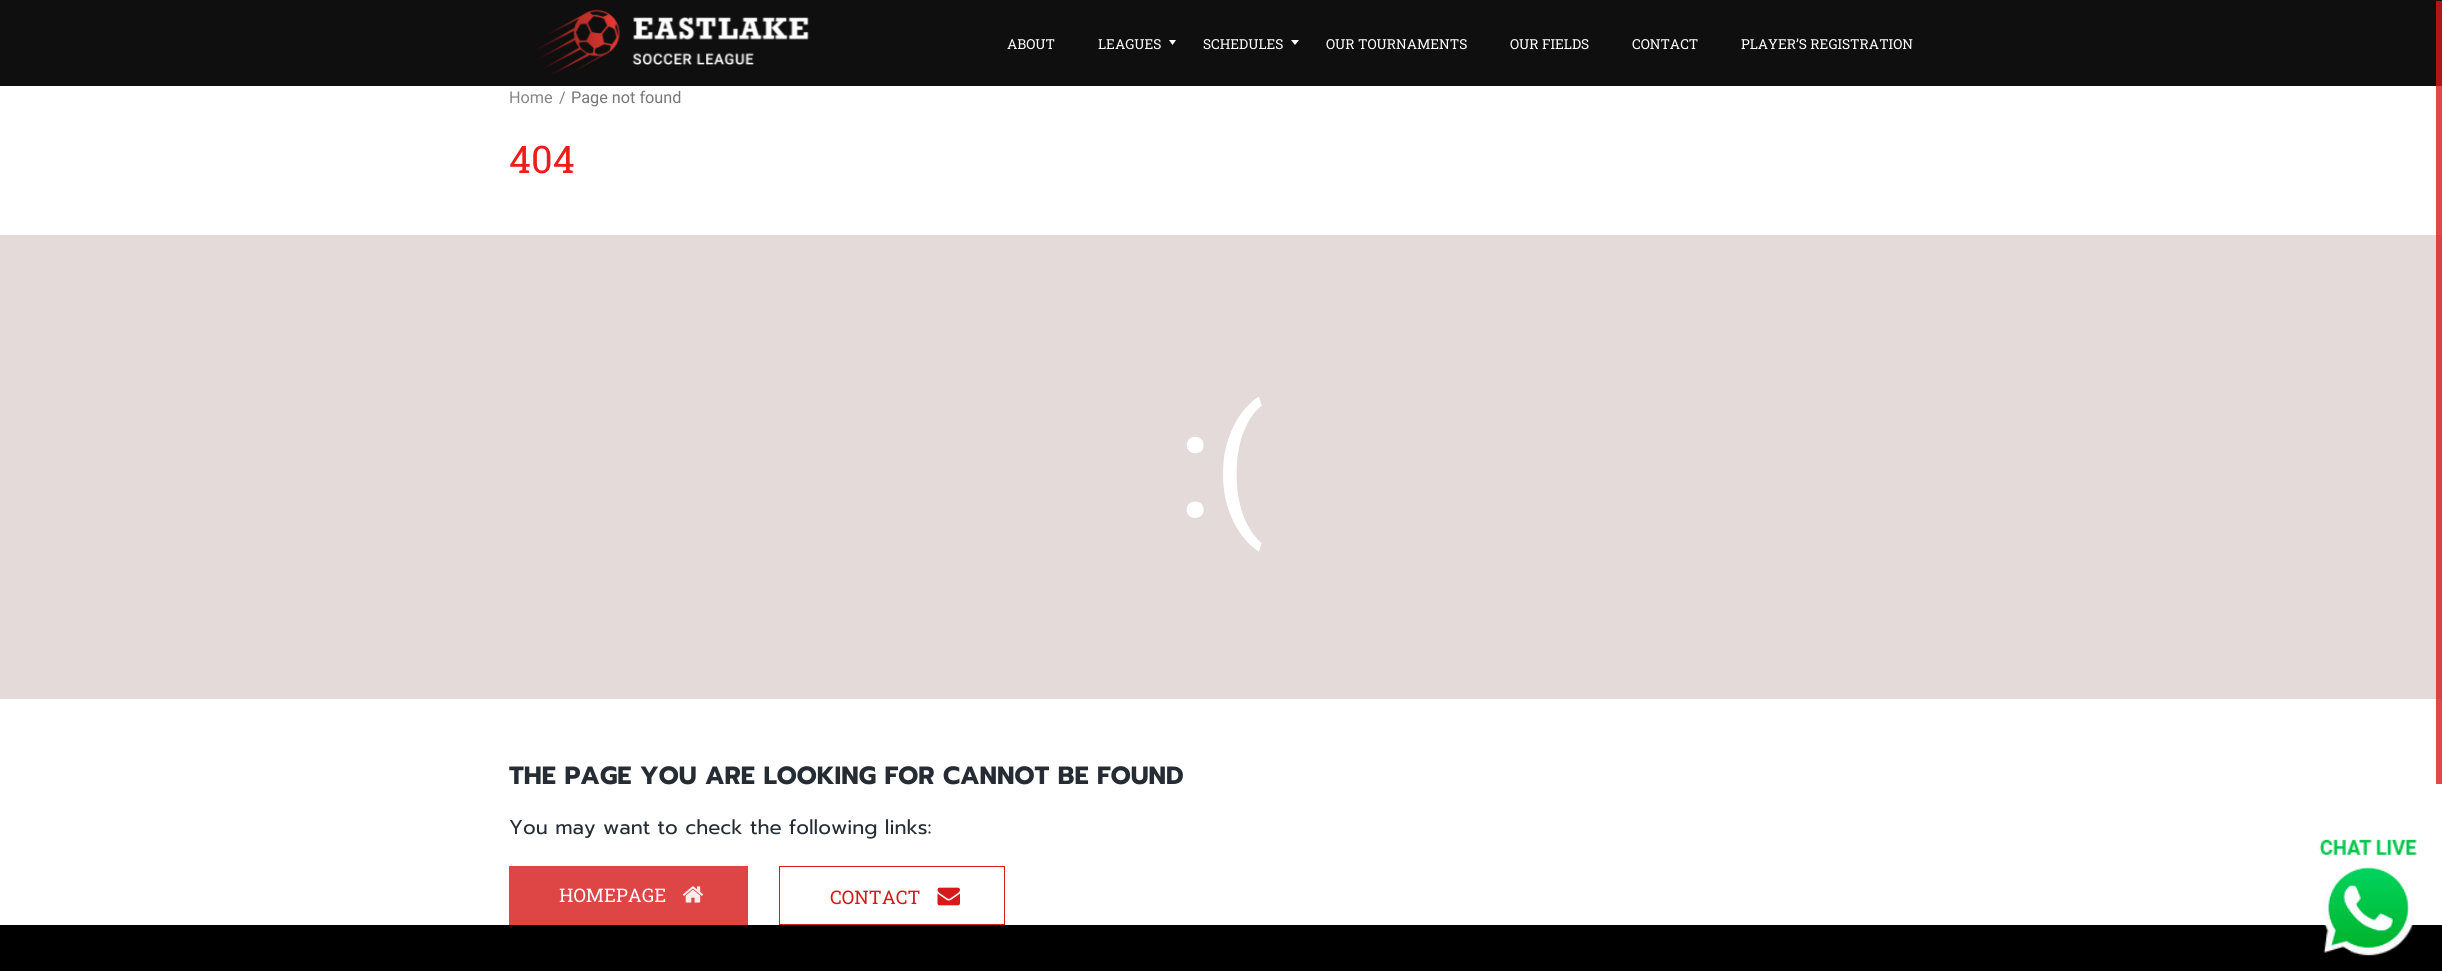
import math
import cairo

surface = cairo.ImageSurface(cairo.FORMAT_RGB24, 2442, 971)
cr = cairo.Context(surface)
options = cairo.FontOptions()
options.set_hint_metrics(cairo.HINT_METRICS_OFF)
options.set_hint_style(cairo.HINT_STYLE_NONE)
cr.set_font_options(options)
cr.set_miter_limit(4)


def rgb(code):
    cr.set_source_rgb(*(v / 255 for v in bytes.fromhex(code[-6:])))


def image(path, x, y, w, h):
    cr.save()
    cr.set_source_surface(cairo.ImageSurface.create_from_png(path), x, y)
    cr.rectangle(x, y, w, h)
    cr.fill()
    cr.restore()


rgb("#ffffff")
cr.paint()
rgb("#0f0f0f")
cr.rectangle(0, 0, 2442, 86)
cr.fill()
rgb("#ac1717")
cr.rectangle(2436, 1, 6, 85)
cr.fill()
image("img/1.png", 534, 9, 275, 67)
rgb("#ffffff")
cr.new_path()
cr.move_to(1169, 40)
cr.line_to(1176, 40)
cr.line_to(1172.5, 45)
cr.close_path()
cr.fill()
cr.new_path()
cr.move_to(1291, 40)
cr.line_to(1299, 40)
cr.line_to(1295, 45)
cr.close_path()
cr.fill()
for x, y, w, h, color in [
    (2436, 86, 6, 698, "#df4949"),
    (0, 235, 2436, 464, "#e5dada"),
    (2436, 235, 6, 464, "#d94242"),
    (509, 866, 239, 59, "#de4545"),
]:
    rgb(color)
    cr.rectangle(x, y, w, h)
    cr.fill()
image("img/2.png", 682, 886, 21, 17)
cr.rectangle(779.5, 866.5, 225, 58)
rgb("#d61919")
cr.set_line_width(1)
cr.stroke()
image("img/3.png", 937, 887, 23, 19)
rgb("#000000")
cr.rectangle(0, 925, 2442, 46)
cr.fill()
image("img/4.png", 2319, 839, 98, 117)
cr.select_font_face("Roboto Slab")
cr.set_font_size(13.75)
rgb("#ffffff")
for x, y, s in [
    (1007, 49, "ABOUT"),
    (1098, 49, "LEAGUES"),
    (1203, 49, "SCHEDULES"),
    (1326, 49, "OUR TOURNAMENTS"),
    (1510, 49, "OUR FIELDS"),
    (1632, 49, "CONTACT"),
    (1741, 49, "PLAYER’S REGISTRATION"),
]:
    cr.move_to(x, y)
    cr.show_text(s)
cr.select_font_face("Roboto")
cr.set_font_size(16.25)
rgb("#868686")
cr.move_to(509, 103)
cr.show_text("Home")
cr.move_to(559, 103)
cr.show_text("/")
rgb("#777777")
cr.move_to(571, 103)
cr.show_text("Page not found")
cr.select_font_face("Roboto Slab")
cr.set_font_size(38)
rgb("#f01c1c")
cr.move_to(509, 173)
cr.show_text("404")
cr.select_font_face("Roboto")
cr.set_font_size(150)
rgb("#ffffff")
cr.move_to(1177, 517)
cr.show_text(":(")
cr.select_font_face("Prompt", cairo.FONT_SLANT_NORMAL, cairo.FONT_WEIGHT_BOLD)
cr.set_font_size(25)
rgb("#252c33")
cr.move_to(509, 784)
cr.show_text("THE PAGE YOU ARE LOOKING FOR CANNOT BE FOUND")
cr.select_font_face("Prompt")
cr.set_font_size(20)
cr.move_to(509, 834)
cr.show_text("You may want to check the following links:")
cr.select_font_face("Roboto Slab")
cr.set_font_size(18.75)
rgb("#ffffff")
cr.move_to(559, 902)
cr.show_text("HOMEPAGE")
rgb("#d61919")
cr.move_to(830, 904)
cr.show_text("CONTACT")
surface.write_to_png("page.png")
